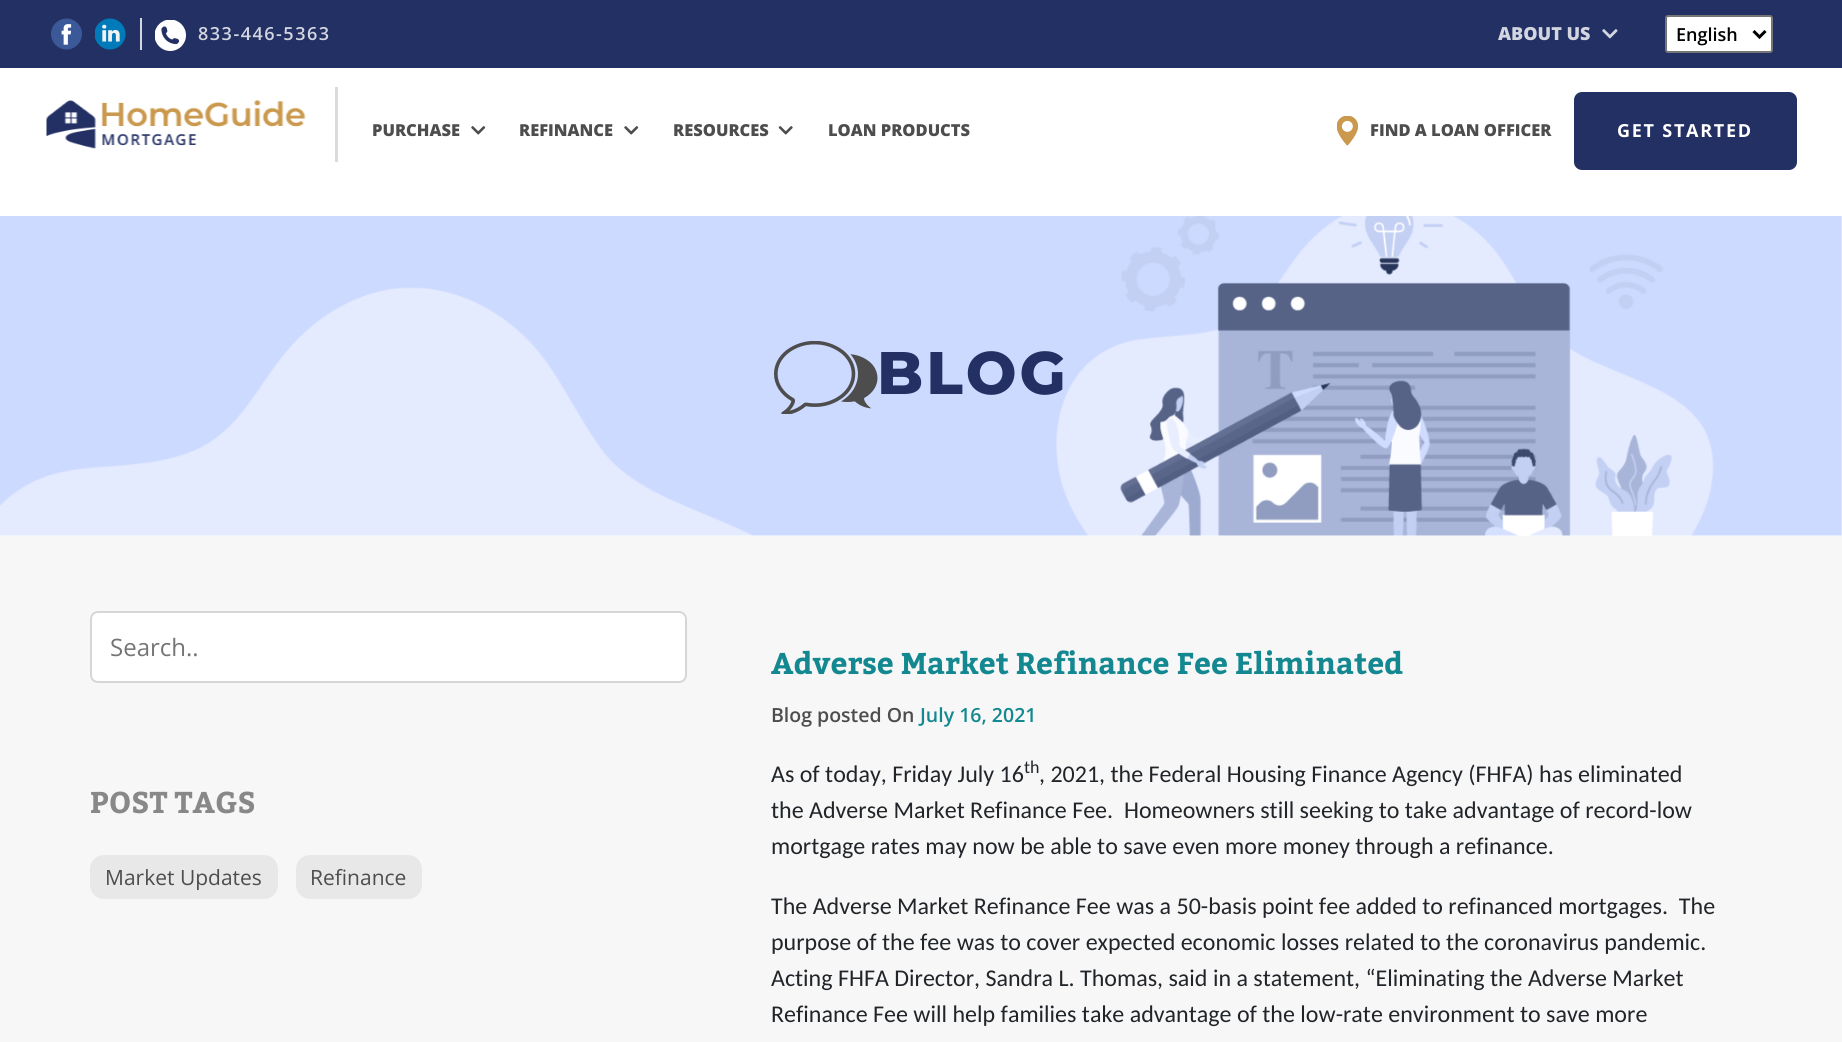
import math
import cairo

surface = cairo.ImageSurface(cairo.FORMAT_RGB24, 1842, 1042)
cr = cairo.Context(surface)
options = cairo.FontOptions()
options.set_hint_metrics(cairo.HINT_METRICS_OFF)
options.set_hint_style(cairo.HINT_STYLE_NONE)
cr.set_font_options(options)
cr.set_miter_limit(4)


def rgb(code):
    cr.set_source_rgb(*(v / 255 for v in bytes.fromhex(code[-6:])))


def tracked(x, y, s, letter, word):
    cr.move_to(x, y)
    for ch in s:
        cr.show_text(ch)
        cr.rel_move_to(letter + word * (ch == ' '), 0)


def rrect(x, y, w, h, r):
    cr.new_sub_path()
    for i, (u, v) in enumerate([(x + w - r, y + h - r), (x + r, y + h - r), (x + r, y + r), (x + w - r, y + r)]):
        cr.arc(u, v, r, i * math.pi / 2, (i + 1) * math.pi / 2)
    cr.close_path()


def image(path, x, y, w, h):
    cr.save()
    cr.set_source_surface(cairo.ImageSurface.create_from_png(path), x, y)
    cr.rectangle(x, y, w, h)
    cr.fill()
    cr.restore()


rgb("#ffffff")
cr.paint()
rgb("#233064")
cr.rectangle(0, 0, 1842, 68)
cr.fill()
rgb("#d3d6e0")
cr.rectangle(140, 18, 2, 32)
cr.fill()
image("img/1.png", 51, 18, 31, 32)
image("img/2.png", 95, 18, 31, 32)
image("img/3.png", 155, 20, 31, 31)
image("img/4.png", 1602, 29, 16, 10)
rgb("#ffffff")
rrect(1666, 16, 106, 36, 2)
cr.fill_preserve()
rgb("#767676")
cr.stroke()
cr.new_path()
cr.move_to(1753.5, 31)
cr.line_to(1759.5, 37)
cr.line_to(1765.5, 31)
rgb("#000000")
cr.set_line_width(3)
cr.stroke()
rgb("#dbdbdb")
cr.rectangle(335, 87, 3, 75)
cr.fill()
image("img/5.png", 46, 100, 260, 49)
image("img/6.png", 471, 126, 15, 9)
image("img/6.png", 624, 126, 15, 9)
image("img/7.png", 778, 126, 15, 9)
image("img/8.png", 1337, 116, 21, 30)
rgb("#233064")
rrect(1575.5, 93.5, 220, 75, 6.5)
cr.fill_preserve()
cr.stroke()
image("img/9.png", 0, 216, 1842, 320)
image("img/10.png", 774, 341, 104, 73)
rgb("#f7f7f7")
cr.rectangle(0, 536, 1842, 506)
cr.fill()
rgb("#ffffff")
rrect(91, 612, 595, 70, 7)
cr.fill_preserve()
rgb("#d6d6d6")
cr.set_line_width(2)
cr.stroke()
rgb("#e8e8e8")
rrect(90, 855, 188, 44, 14)
cr.fill()
rrect(296, 855, 126, 44, 14)
cr.fill()
cr.select_font_face("Open Sans SemiBold")
cr.set_font_size(18)
rgb("#d3d6e0")
tracked(198, 40, "833-446-5363", 1.5, 0)
cr.select_font_face("Open Sans ExtraBold")
cr.move_to(1498, 40)
cr.show_text("ABOUT US")
cr.select_font_face("Open Sans SemiBold")
rgb("#000000")
cr.move_to(1676, 41)
cr.show_text("English")
cr.select_font_face("Open Sans ExtraBold")
cr.set_font_size(16.5)
rgb("#4d4d4d")
for x, y, s in [
    (372, 136, "PURCHASE"),
    (519, 136, "REFINANCE"),
    (673, 136, "RESOURCES"),
    (828, 136, "LOAN PRODUCTS"),
    (1370, 136, "FIND A LOAN OFFICER"),
]:
    cr.move_to(x, y)
    cr.show_text(s)
cr.select_font_face("Open Sans", cairo.FONT_SLANT_NORMAL, cairo.FONT_WEIGHT_BOLD)
cr.set_font_size(18)
rgb("#ffffff")
tracked(1617, 137, "GET STARTED", 1.75, 0)
cr.select_font_face("Montserrat ExtraBold")
cr.set_font_size(60)
rgb("#233064")
tracked(877, 394, "BLOG", 3, 0)
cr.select_font_face("Open Sans")
cr.set_font_size(24)
rgb("#757575")
cr.move_to(110, 656)
cr.show_text("Search..")
cr.select_font_face("Kadwa", cairo.FONT_SLANT_NORMAL, cairo.FONT_WEIGHT_BOLD)
cr.set_font_size(30)
rgb("#888888")
cr.move_to(90, 813)
cr.show_text("POST TAGS")
cr.select_font_face("Open Sans")
cr.set_font_size(21)
rgb("#4d4d4d")
cr.move_to(105, 885)
cr.show_text("Market Updates")
cr.move_to(310, 885)
cr.show_text("Refinance")
cr.select_font_face("Kadwa", cairo.FONT_SLANT_NORMAL, cairo.FONT_WEIGHT_BOLD)
cr.set_font_size(30)
rgb("#138890")
cr.move_to(771, 674)
cr.show_text("Adverse Market Refinance Fee Eliminated")
cr.select_font_face("Open Sans SemiBold")
cr.set_font_size(19.5)
rgb("#4d4d4d")
cr.move_to(771, 722)
cr.show_text("Blog posted On")
rgb("#138890")
cr.move_to(920, 722)
cr.show_text("July 16, 2021")
cr.select_font_face("Carlito")
cr.set_font_size(24)
rgb("#212529")
cr.move_to(771, 782)
cr.show_text("As of today, Friday July 16")
cr.set_font_size(18)
cr.move_to(1024, 773)
cr.show_text("th")
cr.set_font_size(24)
for x, y, s in [
    (1039, 782, ", 2021, the Federal Housing Finance Agency (FHFA) has eliminated"),
    (771, 818, "the Adverse Market Refinance Fee.  Homeowners still seeking to take advantage of record-low"),
    (771, 854, "mortgage rates may now be able to save even more money through a refinance."),
    (771, 914, "The Adverse Market Refinance Fee was a 50-basis point fee added to refinanced mortgages.  The"),
    (771, 950, "purpose of the fee was to cover expected economic losses related to the coronavirus pandemic."),
    (771, 986, "Acting FHFA Director, Sandra L. Thomas, said in a statement, “Eliminating the Adverse Market"),
    (771, 1022, "Refinance Fee will help families take advantage of the low-rate environment to save more"),
]:
    cr.move_to(x, y)
    cr.show_text(s)
surface.write_to_png("page.png")
